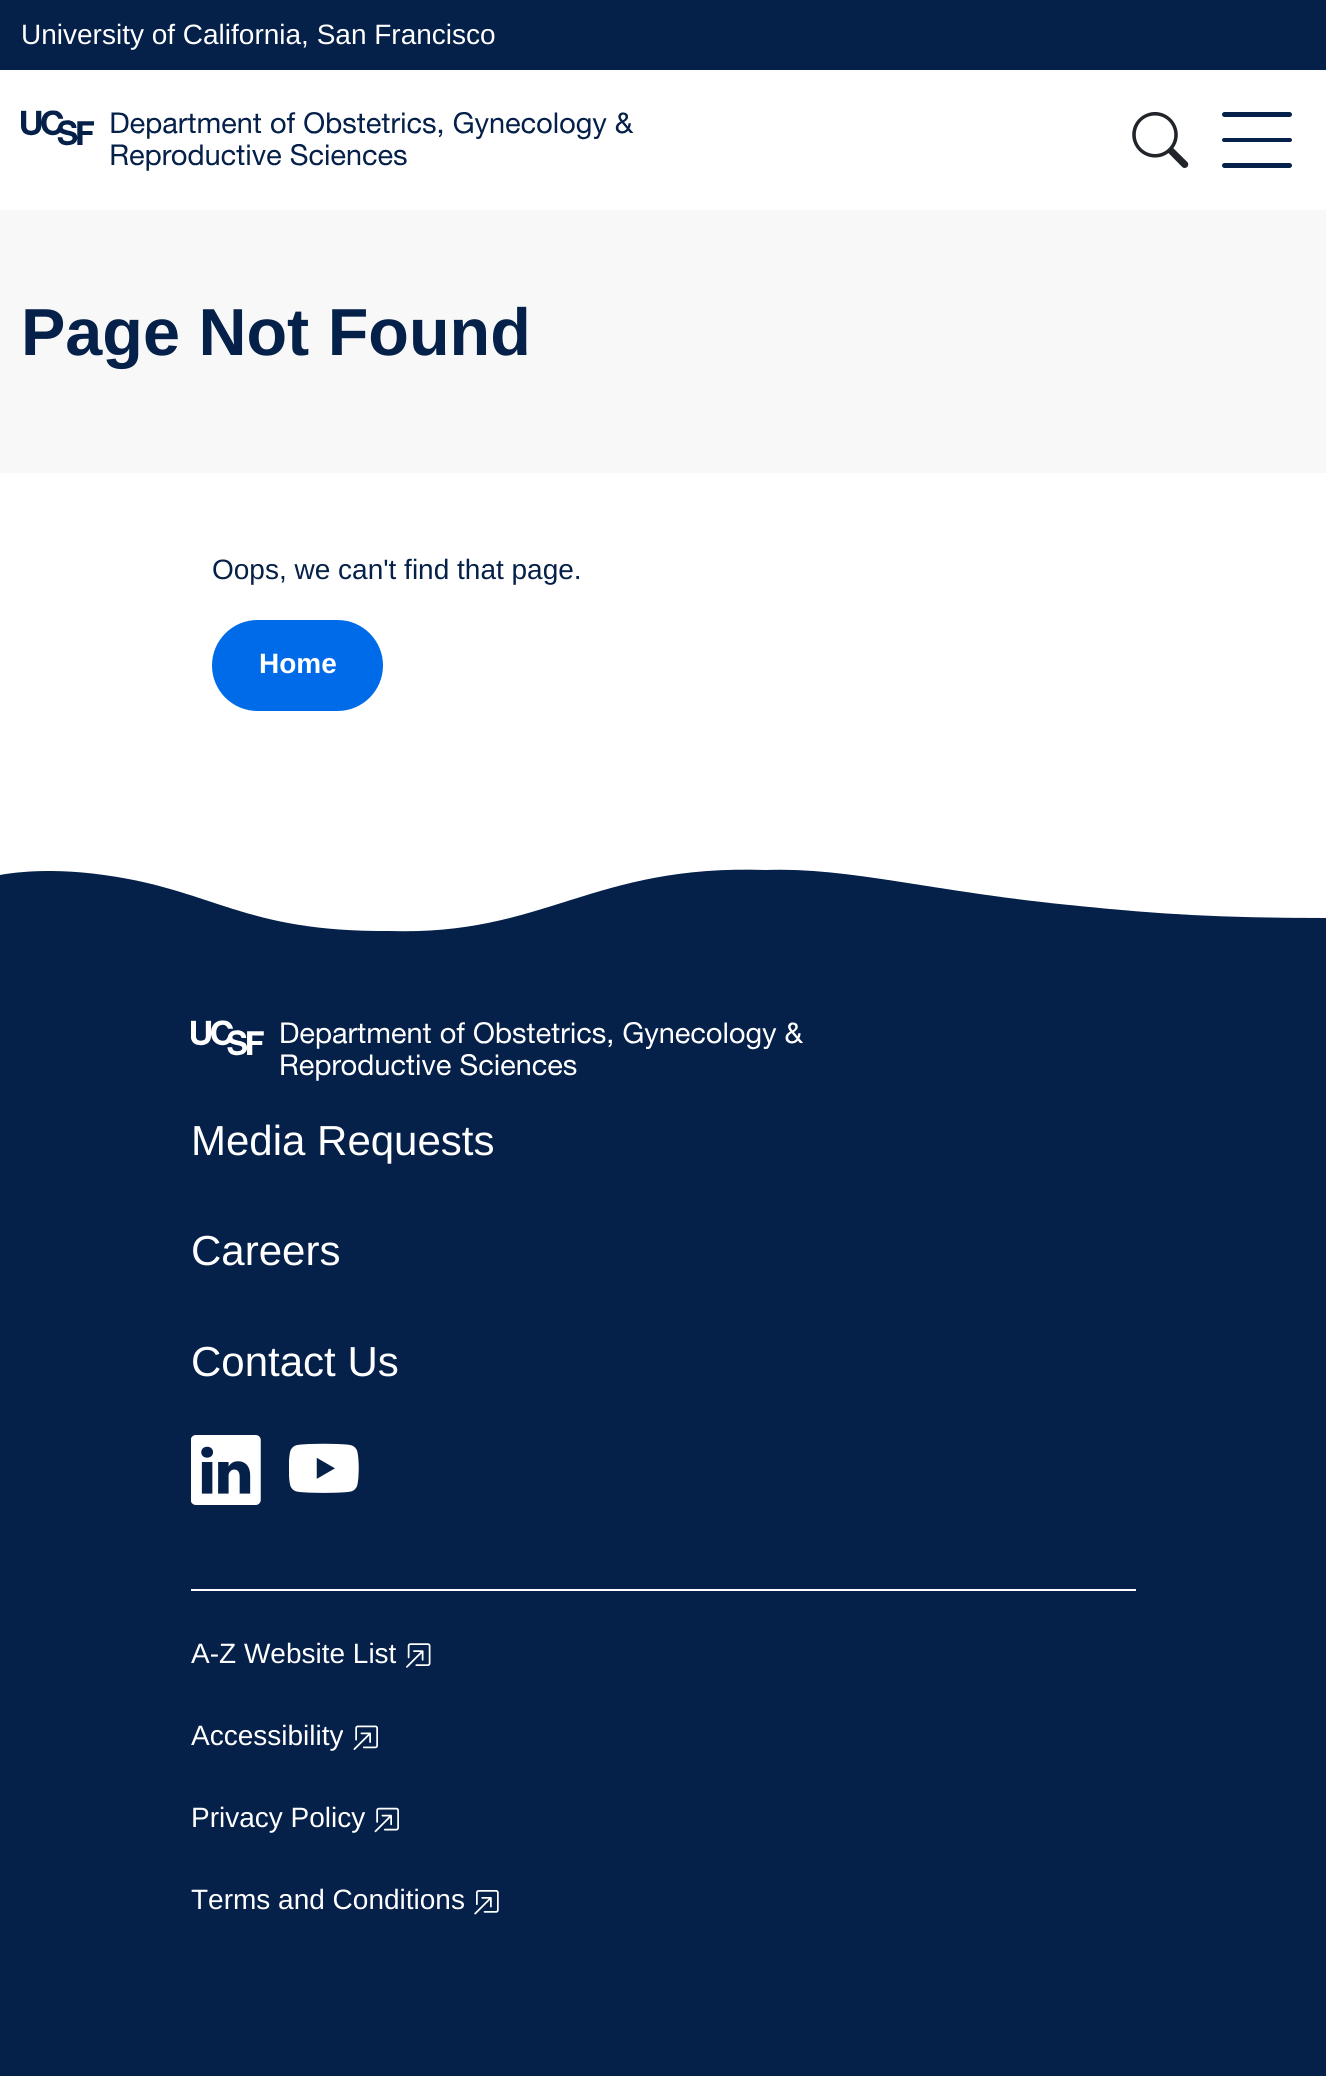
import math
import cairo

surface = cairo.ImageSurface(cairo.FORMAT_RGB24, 1326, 2076)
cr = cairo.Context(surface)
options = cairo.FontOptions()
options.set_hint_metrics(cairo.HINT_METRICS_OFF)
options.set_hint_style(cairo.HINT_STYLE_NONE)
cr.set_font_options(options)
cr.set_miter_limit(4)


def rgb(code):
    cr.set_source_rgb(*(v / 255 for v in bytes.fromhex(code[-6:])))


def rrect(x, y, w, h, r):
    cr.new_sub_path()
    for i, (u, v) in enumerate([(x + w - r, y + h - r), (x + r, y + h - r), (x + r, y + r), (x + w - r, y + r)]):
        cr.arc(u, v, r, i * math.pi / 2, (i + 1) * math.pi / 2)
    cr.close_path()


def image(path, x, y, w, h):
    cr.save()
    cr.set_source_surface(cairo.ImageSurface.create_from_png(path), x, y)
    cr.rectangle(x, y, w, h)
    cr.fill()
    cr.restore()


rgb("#ffffff")
cr.paint()
rgb("#052049")
cr.rectangle(0, 0, 1326, 70)
cr.fill()
image("img/1.png", 21, 110, 613, 61)
image("img/2.png", 1132, 112, 57, 56)
rrect(1222, 112, 70, 5, 2.5)
cr.fill()
rrect(1222, 138, 70, 4, 2)
cr.fill()
rrect(1222, 163, 70, 5, 2.5)
cr.fill()
rgb("#f8f8f9")
cr.rectangle(0, 210, 1326, 263)
cr.fill()
rgb("#006be9")
rrect(214, 622, 167, 87, 43.5)
cr.fill_preserve()
cr.set_line_width(4)
cr.stroke()
rgb("#052049")
cr.set_fill_rule(cairo.FILL_RULE_EVEN_ODD)
cr.new_path()
cr.move_to(766, 870)
cr.curve_to(591, 864, 545, 936, 389, 931)
cr.curve_to(243, 932, 214, 890, 104, 875)
cr.curve_to(41, 866, 0, 875, 0, 875)
cr.line_to(0, 939)
cr.line_to(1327, 939)
cr.line_to(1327, 918)
cr.curve_to(1218, 918, 1158, 914, 1079, 906)
cr.curve_to(932, 892, 850, 867, 766, 870)
cr.close_path()
cr.fill()
cr.rectangle(0, 939, 1326, 1137)
cr.fill()
image("img/3.png", 191, 1020, 612, 61)
image("img/4.png", 191, 1435, 70, 70)
image("img/5.png", 289, 1443, 70, 50)
rgb("#ffffff")
cr.rectangle(191, 1589, 945, 2)
cr.fill()
image("img/6.png", 406, 1643, 25, 25)
image("img/7.png", 353, 1725, 25, 25)
image("img/8.png", 374, 1807, 25, 26)
image("img/9.png", 474, 1890, 25, 25)
cr.select_font_face("Liberation Sans")
cr.set_font_size(28)
cr.move_to(21, 44)
cr.show_text("University of California, San Francisco")
cr.select_font_face("Liberation Sans", cairo.FONT_SLANT_NORMAL, cairo.FONT_WEIGHT_BOLD)
cr.set_font_size(66.5)
rgb("#052049")
cr.move_to(21, 355)
cr.show_text("Page Not Found")
cr.select_font_face("Liberation Sans")
cr.set_font_size(28)
cr.move_to(212, 579)
cr.show_text("Oops, we can't find that page.")
cr.select_font_face("Liberation Sans", cairo.FONT_SLANT_NORMAL, cairo.FONT_WEIGHT_BOLD)
rgb("#ffffff")
cr.move_to(259, 673)
cr.show_text("Home")
cr.select_font_face("Liberation Sans")
cr.set_font_size(42)
for x, y, s in [
    (191, 1155, "Media Requests"),
    (191, 1265, "Careers"),
    (191, 1376, "Contact Us"),
]:
    cr.move_to(x, y)
    cr.show_text(s)
cr.set_font_size(28)
for x, y, s in [
    (191, 1663, "A-Z Website List"),
    (191, 1745, "Accessibility"),
    (191, 1827, "Privacy Policy"),
    (191, 1909, "Terms and Conditions"),
]:
    cr.move_to(x, y)
    cr.show_text(s)
surface.write_to_png("page.png")
